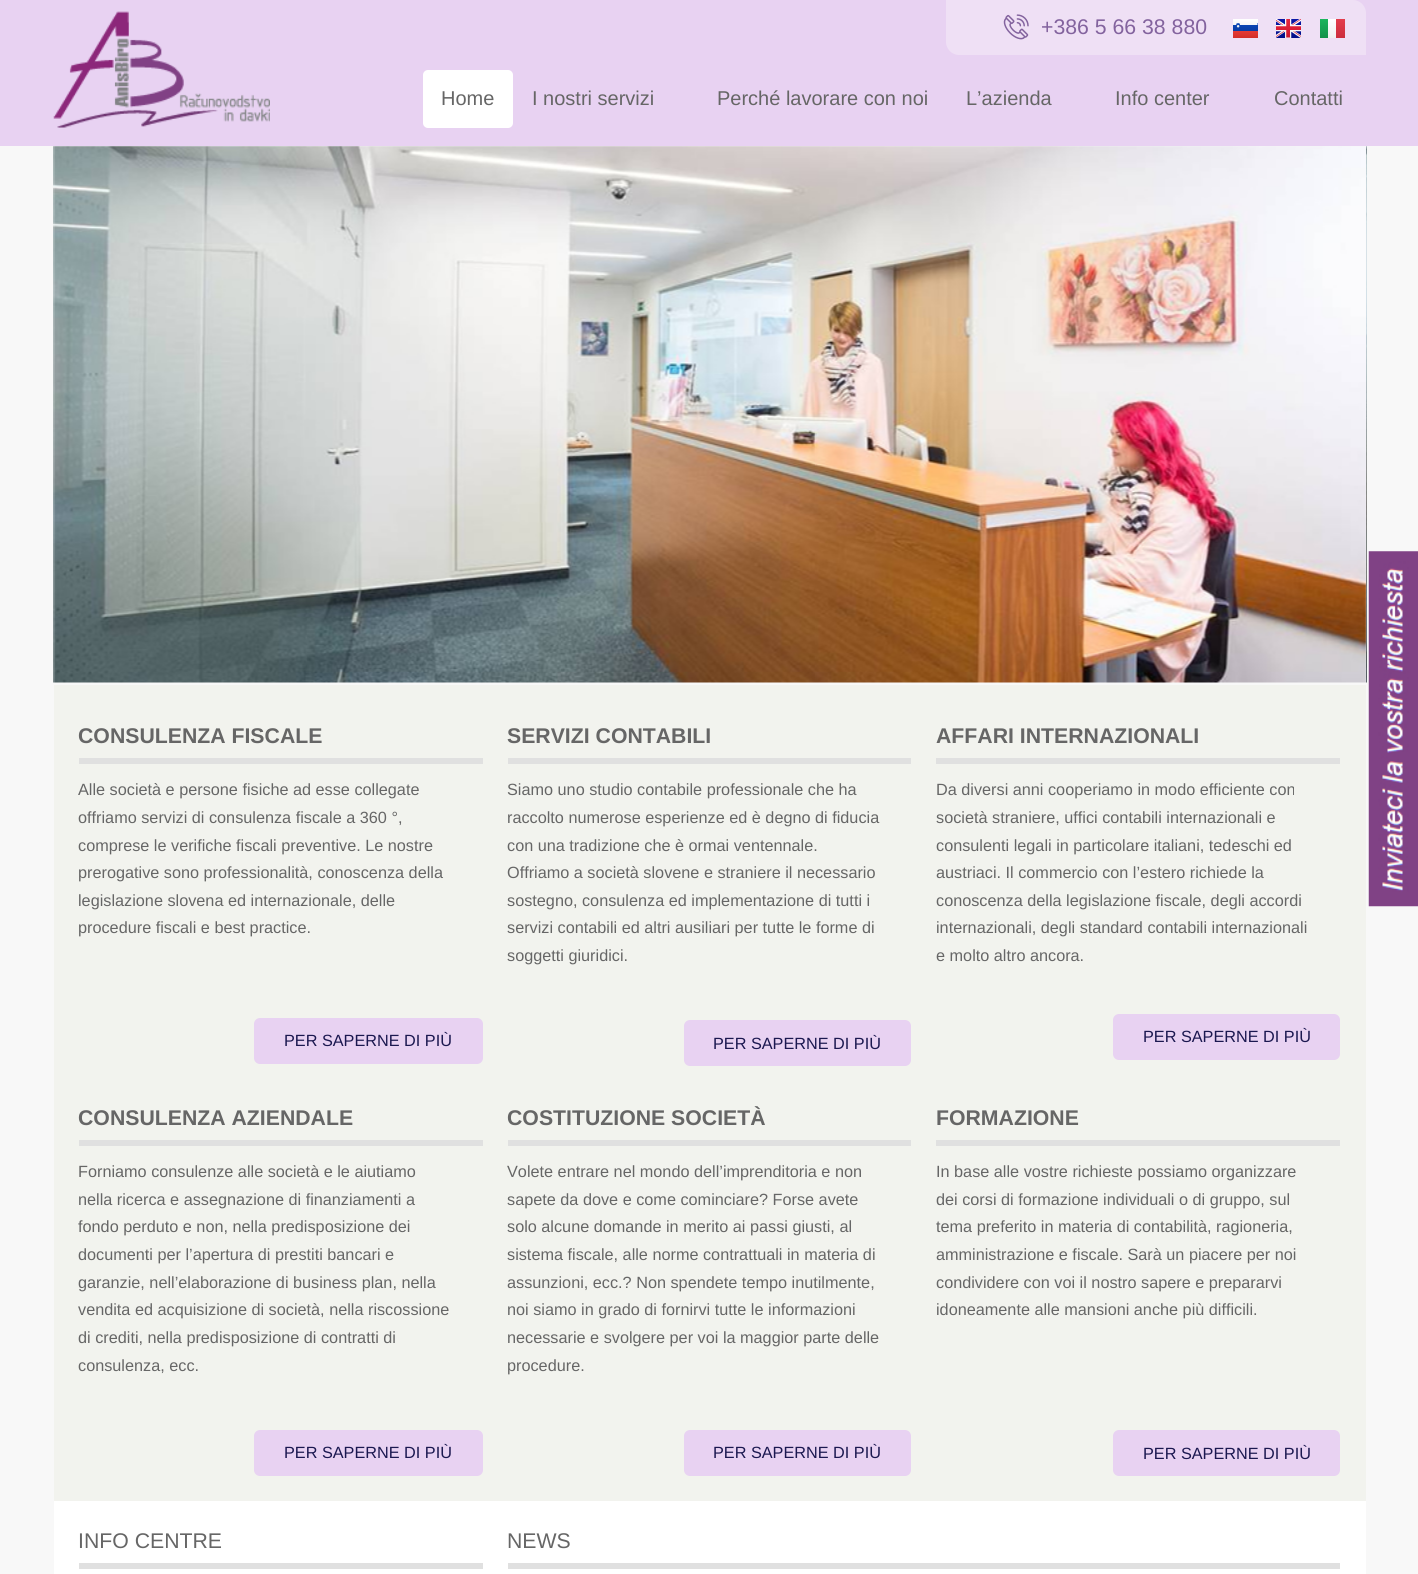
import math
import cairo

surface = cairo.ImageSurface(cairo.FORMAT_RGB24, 1418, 1574)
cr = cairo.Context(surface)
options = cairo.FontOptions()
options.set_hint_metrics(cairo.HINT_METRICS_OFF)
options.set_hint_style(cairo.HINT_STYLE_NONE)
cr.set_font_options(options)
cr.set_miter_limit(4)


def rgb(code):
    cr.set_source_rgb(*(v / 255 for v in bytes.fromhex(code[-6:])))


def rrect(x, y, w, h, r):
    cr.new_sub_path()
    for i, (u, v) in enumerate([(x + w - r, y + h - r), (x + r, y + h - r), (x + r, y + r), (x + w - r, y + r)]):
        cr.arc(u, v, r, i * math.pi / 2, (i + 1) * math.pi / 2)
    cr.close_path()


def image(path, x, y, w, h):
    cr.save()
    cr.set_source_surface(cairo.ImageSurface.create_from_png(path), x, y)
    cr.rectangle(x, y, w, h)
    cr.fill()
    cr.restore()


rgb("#f8f8f8")
cr.paint()
rgb("#e8d2f2")
cr.rectangle(0, 0, 1418, 146)
cr.fill()
rgb("#efe0f5")
cr.new_path()
cr.move_to(946, 0)
cr.line_to(1353, 0)
cr.curve_to(1360, 0, 1366, 6, 1366, 13)
cr.line_to(1366, 55)
cr.line_to(959, 55)
cr.curve_to(952, 55, 946, 49, 946, 42)
cr.close_path()
cr.fill()
image("img/1.png", 1003, 14, 26, 26)
image("img/2.png", 1233, 19, 25, 19)
image("img/3.png", 1276, 19, 25, 19)
gradient = cairo.LinearGradient(1323, 19, 1323, 38)
gradient.add_color_stop_rgba(0, 0.106, 0.714, 0.365, 1)
gradient.add_color_stop_rgba(1, 0.075, 0.569, 0.286, 1)
cr.set_source(gradient)
cr.rectangle(1320, 19, 8, 19)
cr.fill()
gradient = cairo.LinearGradient(1332, 19, 1332, 38)
gradient.add_color_stop_rgba(0, 1, 1, 1, 1)
gradient.add_color_stop_rgba(1, 0.941, 0.941, 0.941, 1)
cr.set_source(gradient)
cr.rectangle(1328, 19, 8, 19)
cr.fill()
gradient = cairo.LinearGradient(1338, 19, 1338, 38)
gradient.add_color_stop_rgba(0, 0.894, 0.239, 0.298, 1)
gradient.add_color_stop_rgba(1, 0.8, 0.18, 0.235, 1)
cr.set_source(gradient)
cr.rectangle(1336, 19, 9, 19)
cr.fill()
image("img/4.png", 53, 11, 217, 117)
rgb("#ffffff")
rrect(423, 70, 90, 58, 5)
cr.fill()
image("img/5.png", 53, 146, 1313, 537)
image("img/6.png", 1366, 146, 1, 537)
rgb("#f2f3ee")
cr.rectangle(54, 685, 1312, 816)
cr.fill()
rgb("#e0e0e0")
cr.rectangle(79, 758, 404, 6)
cr.fill()
rgb("#e8d2f2")
rrect(254, 1018, 229, 46, 6)
cr.fill()
rgb("#e0e0e0")
cr.rectangle(508, 758, 403, 6)
cr.fill()
rgb("#e8d2f2")
rrect(684, 1020, 227, 46, 6)
cr.fill()
rgb("#e0e0e0")
cr.rectangle(936, 758, 404, 6)
cr.fill()
rgb("#e8d2f2")
rrect(1113, 1014, 227, 46, 6)
cr.fill()
rgb("#e0e0e0")
cr.rectangle(79, 1140, 404, 6)
cr.fill()
rgb("#e8d2f2")
rrect(254, 1430, 229, 46, 6)
cr.fill()
rgb("#e0e0e0")
cr.rectangle(508, 1140, 403, 6)
cr.fill()
rgb("#e8d2f2")
rrect(684, 1430, 227, 46, 6)
cr.fill()
rgb("#e0e0e0")
cr.rectangle(936, 1140, 404, 6)
cr.fill()
rgb("#e8d2f2")
rrect(1113, 1430, 227, 46, 6)
cr.fill()
for x, y, w, h, color in [
    (54, 1501, 1312, 73, "#ffffff"),
    (79, 1563, 404, 6, "#e0e0e0"),
    (508, 1563, 832, 6, "#e0e0e0"),
]:
    rgb(color)
    cr.rectangle(x, y, w, h)
    cr.fill()
image("img/7.png", 1368, 551, 50, 356)
cr.select_font_face("Liberation Sans")
cr.set_font_size(21.25)
rgb("#83639e")
cr.move_to(1041, 34)
cr.show_text("+386 5 66 38 880")
cr.set_font_size(20)
rgb("#666666")
for x, y, s in [
    (441, 105, "Home"),
    (532, 105, "I nostri servizi"),
    (717, 105, "Perché lavorare con noi"),
    (966, 105, "L’azienda"),
    (1115, 105, "Info center"),
    (1274, 105, "Contatti"),
]:
    cr.move_to(x, y)
    cr.show_text(s)
cr.select_font_face("Liberation Sans", cairo.FONT_SLANT_NORMAL, cairo.FONT_WEIGHT_BOLD)
cr.set_font_size(21.25)
cr.move_to(78, 743)
cr.show_text("CONSULENZA FISCALE")
cr.select_font_face("Liberation Sans")
cr.set_font_size(16.25)
for x, y, s in [
    (78, 795, "Alle società e persone fisiche ad esse collegate"),
    (78, 823, "offriamo servizi di consulenza fiscale a 360 °,"),
    (78, 851, "comprese le verifiche fiscali preventive. Le nostre"),
    (78, 878, "prerogative sono professionalità, conoscenza della"),
    (78, 906, "legislazione slovena ed internazionale, delle"),
    (78, 933, "procedure fiscali e best practice."),
]:
    cr.move_to(x, y)
    cr.show_text(s)
rgb("#1b1850")
cr.move_to(284, 1046)
cr.show_text("PER SAPERNE DI PIÙ")
cr.select_font_face("Liberation Sans", cairo.FONT_SLANT_NORMAL, cairo.FONT_WEIGHT_BOLD)
cr.set_font_size(21.25)
rgb("#666666")
cr.move_to(507, 743)
cr.show_text("SERVIZI CONTABILI")
cr.select_font_face("Liberation Sans")
cr.set_font_size(16.25)
for x, y, s in [
    (507, 795, "Siamo uno studio contabile professionale che ha"),
    (507, 823, "raccolto numerose esperienze ed è degno di fiducia"),
    (507, 851, "con una tradizione che è ormai ventennale."),
    (507, 878, "Offriamo a società slovene e straniere il necessario"),
    (507, 906, "sostegno, consulenza ed implementazione di tutti i"),
    (507, 933, "servizi contabili ed altri ausiliari per tutte le forme di"),
    (507, 961, "soggetti giuridici."),
]:
    cr.move_to(x, y)
    cr.show_text(s)
rgb("#1b1850")
cr.move_to(713, 1049)
cr.show_text("PER SAPERNE DI PIÙ")
cr.select_font_face("Liberation Sans", cairo.FONT_SLANT_NORMAL, cairo.FONT_WEIGHT_BOLD)
cr.set_font_size(21.25)
rgb("#666666")
cr.move_to(936, 743)
cr.show_text("AFFARI INTERNAZIONALI")
cr.select_font_face("Liberation Sans")
cr.set_font_size(16.25)
for x, y, s in [
    (936, 795, "Da diversi anni cooperiamo in modo efficiente con"),
    (936, 823, "società straniere, uffici contabili internazionali e"),
    (936, 851, "consulenti legali in particolare italiani, tedeschi ed"),
    (936, 878, "austriaci. Il commercio con l’estero richiede la"),
    (936, 906, "conoscenza della legislazione fiscale, degli accordi"),
    (936, 933, "internazionali, degli standard contabili internazionali"),
    (936, 961, "e molto altro ancora."),
]:
    cr.move_to(x, y)
    cr.show_text(s)
rgb("#1b1850")
cr.move_to(1143, 1042)
cr.show_text("PER SAPERNE DI PIÙ")
cr.select_font_face("Liberation Sans", cairo.FONT_SLANT_NORMAL, cairo.FONT_WEIGHT_BOLD)
cr.set_font_size(21.25)
rgb("#666666")
cr.move_to(78, 1125)
cr.show_text("CONSULENZA AZIENDALE")
cr.select_font_face("Liberation Sans")
cr.set_font_size(16.25)
for x, y, s in [
    (78, 1177, "Forniamo consulenze alle società e le aiutiamo"),
    (78, 1205, "nella ricerca e assegnazione di finanziamenti a"),
    (78, 1232, "fondo perduto e non, nella predisposizione dei"),
    (78, 1260, "documenti per l’apertura di prestiti bancari e"),
    (78, 1288, "garanzie, nell’elaborazione di business plan, nella"),
    (78, 1315, "vendita ed acquisizione di società, nella riscossione"),
    (78, 1343, "di crediti, nella predisposizione di contratti di"),
    (78, 1371, "consulenza, ecc."),
]:
    cr.move_to(x, y)
    cr.show_text(s)
rgb("#1b1850")
cr.move_to(284, 1458)
cr.show_text("PER SAPERNE DI PIÙ")
cr.select_font_face("Liberation Sans", cairo.FONT_SLANT_NORMAL, cairo.FONT_WEIGHT_BOLD)
cr.set_font_size(21.25)
rgb("#666666")
cr.move_to(507, 1125)
cr.show_text("COSTITUZIONE SOCIETÀ")
cr.select_font_face("Liberation Sans")
cr.set_font_size(16.25)
for x, y, s in [
    (507, 1177, "Volete entrare nel mondo dell’imprenditoria e non"),
    (507, 1205, "sapete da dove e come cominciare? Forse avete"),
    (507, 1232, "solo alcune domande in merito ai passi giusti, al"),
    (507, 1260, "sistema fiscale, alle norme contrattuali in materia di"),
    (507, 1288, "assunzioni, ecc.? Non spendete tempo inutilmente,"),
    (507, 1315, "noi siamo in grado di fornirvi tutte le informazioni"),
    (507, 1343, "necessarie e svolgere per voi la maggior parte delle"),
    (507, 1371, "procedure."),
]:
    cr.move_to(x, y)
    cr.show_text(s)
rgb("#1b1850")
cr.move_to(713, 1458)
cr.show_text("PER SAPERNE DI PIÙ")
cr.select_font_face("Liberation Sans", cairo.FONT_SLANT_NORMAL, cairo.FONT_WEIGHT_BOLD)
cr.set_font_size(21.25)
rgb("#666666")
cr.move_to(936, 1125)
cr.show_text("FORMAZIONE")
cr.select_font_face("Liberation Sans")
cr.set_font_size(16.25)
for x, y, s in [
    (936, 1177, "In base alle vostre richieste possiamo organizzare"),
    (936, 1205, "dei corsi di formazione individuali o di gruppo, sul"),
    (936, 1232, "tema preferito in materia di contabilità, ragioneria,"),
    (936, 1260, "amministrazione e fiscale. Sarà un piacere per noi"),
    (936, 1288, "condividere con voi il nostro sapere e prepararvi"),
    (936, 1315, "idoneamente alle mansioni anche più difficili."),
]:
    cr.move_to(x, y)
    cr.show_text(s)
rgb("#1b1850")
cr.move_to(1143, 1459)
cr.show_text("PER SAPERNE DI PIÙ")
cr.set_font_size(21.25)
rgb("#666666")
cr.move_to(78, 1548)
cr.show_text("INFO CENTRE")
cr.move_to(507, 1548)
cr.show_text("NEWS")
surface.write_to_png("page.png")
